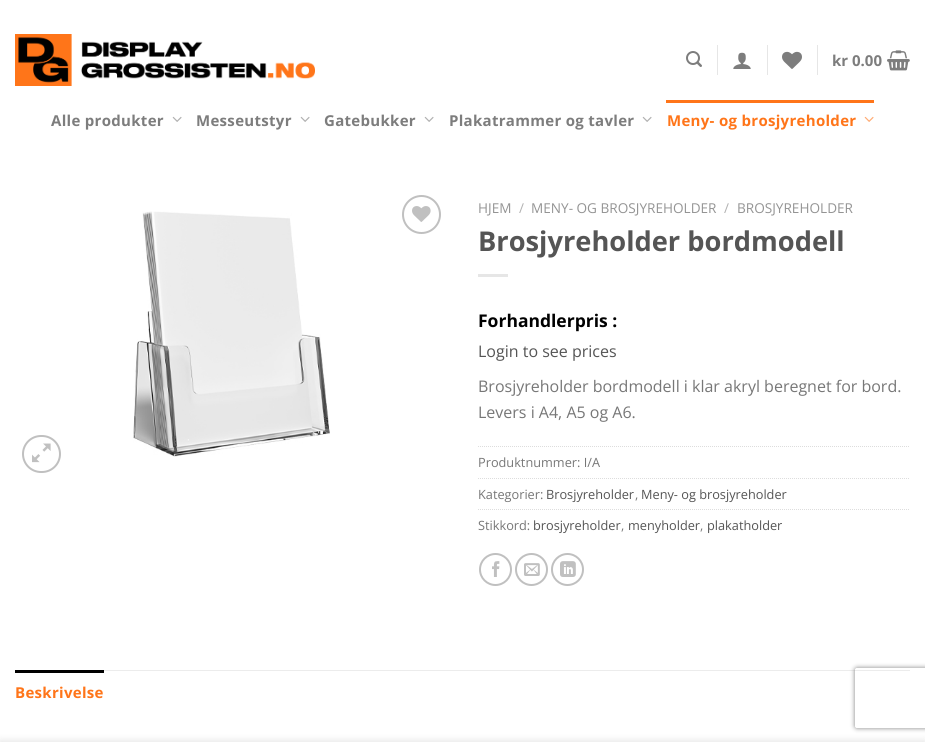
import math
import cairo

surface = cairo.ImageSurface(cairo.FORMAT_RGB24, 925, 742)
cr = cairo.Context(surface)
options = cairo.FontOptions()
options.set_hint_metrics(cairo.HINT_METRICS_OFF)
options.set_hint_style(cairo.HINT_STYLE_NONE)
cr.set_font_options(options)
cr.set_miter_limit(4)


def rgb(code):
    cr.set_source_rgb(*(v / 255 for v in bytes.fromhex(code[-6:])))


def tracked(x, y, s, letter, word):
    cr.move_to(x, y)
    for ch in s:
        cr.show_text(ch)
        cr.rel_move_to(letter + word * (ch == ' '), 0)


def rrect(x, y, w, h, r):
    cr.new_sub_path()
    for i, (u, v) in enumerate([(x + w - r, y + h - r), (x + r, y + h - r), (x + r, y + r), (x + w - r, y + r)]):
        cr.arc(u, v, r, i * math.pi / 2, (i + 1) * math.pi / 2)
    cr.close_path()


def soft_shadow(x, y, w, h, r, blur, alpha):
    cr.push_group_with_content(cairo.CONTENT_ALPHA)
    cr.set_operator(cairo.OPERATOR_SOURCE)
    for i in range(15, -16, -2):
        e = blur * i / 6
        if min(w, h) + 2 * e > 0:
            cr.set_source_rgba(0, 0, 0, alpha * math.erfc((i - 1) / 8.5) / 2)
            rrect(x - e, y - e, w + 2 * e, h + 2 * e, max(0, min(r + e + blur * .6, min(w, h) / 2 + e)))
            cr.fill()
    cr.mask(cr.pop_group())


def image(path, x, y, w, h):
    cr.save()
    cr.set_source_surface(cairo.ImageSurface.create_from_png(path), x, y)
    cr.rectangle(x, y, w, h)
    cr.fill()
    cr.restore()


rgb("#ffffff")
cr.paint()
image("img/1.png", 15, 34, 300, 52)
image("img/2.png", 686, 51, 16, 16)
rgb("#e6e6e6")
cr.rectangle(717, 45, 1, 30)
cr.fill()
image("img/3.png", 733, 52, 18, 17)
cr.rectangle(767, 45, 1, 30)
cr.fill()
image("img/4.png", 782, 51, 20, 18)
cr.rectangle(817, 45, 1, 30)
cr.fill()
image("img/5.png", 887, 50, 23, 21)
image("img/6.png", 172, 116, 10, 6)
image("img/6.png", 300, 116, 10, 6)
image("img/6.png", 424, 116, 10, 6)
image("img/6.png", 642, 116, 10, 6)
rgb("#ff7519")
cr.rectangle(666, 100, 208, 3)
cr.fill()
image("img/7.png", 864, 116, 10, 6)
rrect(23, 436, 37, 36, 18)
rgb("#c0c0c0")
cr.stroke()
image("img/8.png", 32, 443, 19, 20)
image("img/9.png", 133, 211, 197, 246)
cr.arc(421.5, 214.5, 18.5, 0, 2 * math.pi)
cr.stroke()
image("img/10.png", 412, 206, 19, 16)
rgb("#e6e6e6")
cr.rectangle(478, 274, 30, 3)
cr.fill()
cr.new_path()
cr.move_to(478, 446.5)
cr.line_to(910, 446.5)
rgb("#dddddd")
cr.set_line_width(1)
cr.set_dash([1, 1])
cr.stroke()
cr.new_path()
cr.move_to(478, 478.5)
cr.line_to(910, 478.5)
cr.stroke()
cr.new_path()
cr.move_to(478, 509.5)
cr.line_to(910, 509.5)
cr.stroke()
cr.arc(495.5, 569.5, 15.5, 0, 2 * math.pi)
rgb("#c0c0c0")
cr.set_line_width(2)
cr.set_dash([])
cr.stroke()
image("img/11.png", 492, 561, 8, 16)
cr.arc(531.5, 569.5, 15.5, 0, 2 * math.pi)
cr.stroke()
image("img/12.png", 524, 563, 16, 13)
cr.arc(567.5, 569.5, 15.5, 0, 2 * math.pi)
cr.stroke()
image("img/13.png", 560, 561, 16, 16)
rgb("#ececec")
cr.rectangle(104, 670, 806, 1)
cr.fill()
rgb("#000000")
cr.rectangle(15, 670, 89, 3)
cr.fill()
cr.save()
cr.set_fill_rule(cairo.FILL_RULE_EVEN_ODD)
cr.new_path()
cr.move_to(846, 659)
cr.line_to(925, 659)
cr.line_to(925, 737)
cr.line_to(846, 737)
cr.close_path()
cr.move_to(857, 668)
cr.line_to(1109, 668)
cr.curve_to(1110, 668, 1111, 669, 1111, 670)
cr.line_to(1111, 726)
cr.curve_to(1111, 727, 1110, 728, 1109, 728)
cr.line_to(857, 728)
cr.curve_to(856, 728, 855, 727, 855, 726)
cr.line_to(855, 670)
cr.curve_to(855, 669, 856, 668, 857, 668)
cr.close_path()
cr.clip()
rgb("#808080")
soft_shadow(855, 668, 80, 60, 2, 2.5, 1)
cr.restore()
rgb("#000000")
soft_shadow(0, 742, 925, 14, 0, 4.5, 0.14)
cr.select_font_face("Open Sans", cairo.FONT_SLANT_NORMAL, cairo.FONT_WEIGHT_BOLD)
cr.set_font_size(15)
rgb("#7d7d7d")
cr.move_to(832, 66)
cr.show_text("kr 0.00")
for x, y, s in [
    (51, 126, "Alle produkter"),
    (196, 126, "Messeutstyr"),
    (324, 126, "Gatebukker"),
    (449, 126, "Plakatrammer og tavler"),
]:
    tracked(x, y, s, 0.3, 0)
rgb("#ff7519")
tracked(667, 126, "Meny- og brosjyreholder", 0.3, 0)
cr.select_font_face("Open Sans")
cr.set_font_size(13.6)
rgb("#949494")
cr.move_to(478, 213)
cr.show_text("HJEM")
rgb("#b2b2b2")
cr.move_to(519, 213)
cr.show_text("/")
rgb("#949494")
cr.move_to(531, 213)
cr.show_text("MENY- OG BROSJYREHOLDER")
rgb("#b2b2b2")
cr.move_to(724, 213)
cr.show_text("/")
rgb("#949494")
cr.move_to(737, 213)
cr.show_text("BROSJYREHOLDER")
cr.select_font_face("Open Sans", cairo.FONT_SLANT_NORMAL, cairo.FONT_WEIGHT_BOLD)
cr.set_font_size(27.25)
rgb("#555555")
cr.move_to(478, 251)
cr.show_text("Brosjyreholder bordmodell")
cr.set_font_size(17.5)
rgb("#000000")
cr.move_to(478, 327)
cr.show_text("Forhandlerpris :")
cr.select_font_face("Open Sans")
cr.set_font_size(16)
rgb("#555555")
cr.move_to(478, 357)
cr.show_text("Login to see prices")
rgb("#777777")
cr.move_to(478, 392)
cr.show_text("Brosjyreholder bordmodell i klar akryl beregnet for bord.")
cr.move_to(478, 418)
cr.show_text("Levers i A4, A5 og A6.")
cr.set_font_size(12.75)
cr.move_to(478, 467)
cr.show_text("Produktnummer: I/A")
cr.move_to(478, 499)
cr.show_text("Kategorier:")
rgb("#555555")
cr.move_to(546, 499)
cr.show_text("Brosjyreholder")
rgb("#777777")
cr.move_to(635, 499)
cr.show_text(",")
rgb("#555555")
cr.move_to(641, 499)
cr.show_text("Meny- og brosjyreholder")
rgb("#777777")
cr.move_to(478, 530)
cr.show_text("Stikkord:")
rgb("#555555")
cr.move_to(533, 530)
cr.show_text("brosjyreholder")
rgb("#777777")
cr.move_to(621, 530)
cr.show_text(",")
rgb("#555555")
cr.move_to(628, 530)
cr.show_text("menyholder")
rgb("#777777")
cr.move_to(700, 530)
cr.show_text(",")
rgb("#555555")
cr.move_to(707, 530)
cr.show_text("plakatholder")
cr.select_font_face("Open Sans", cairo.FONT_SLANT_NORMAL, cairo.FONT_WEIGHT_BOLD)
cr.set_font_size(15)
rgb("#ff7519")
tracked(15, 698, "Beskrivelse", 0.3, 0)
surface.write_to_png("page.png")
